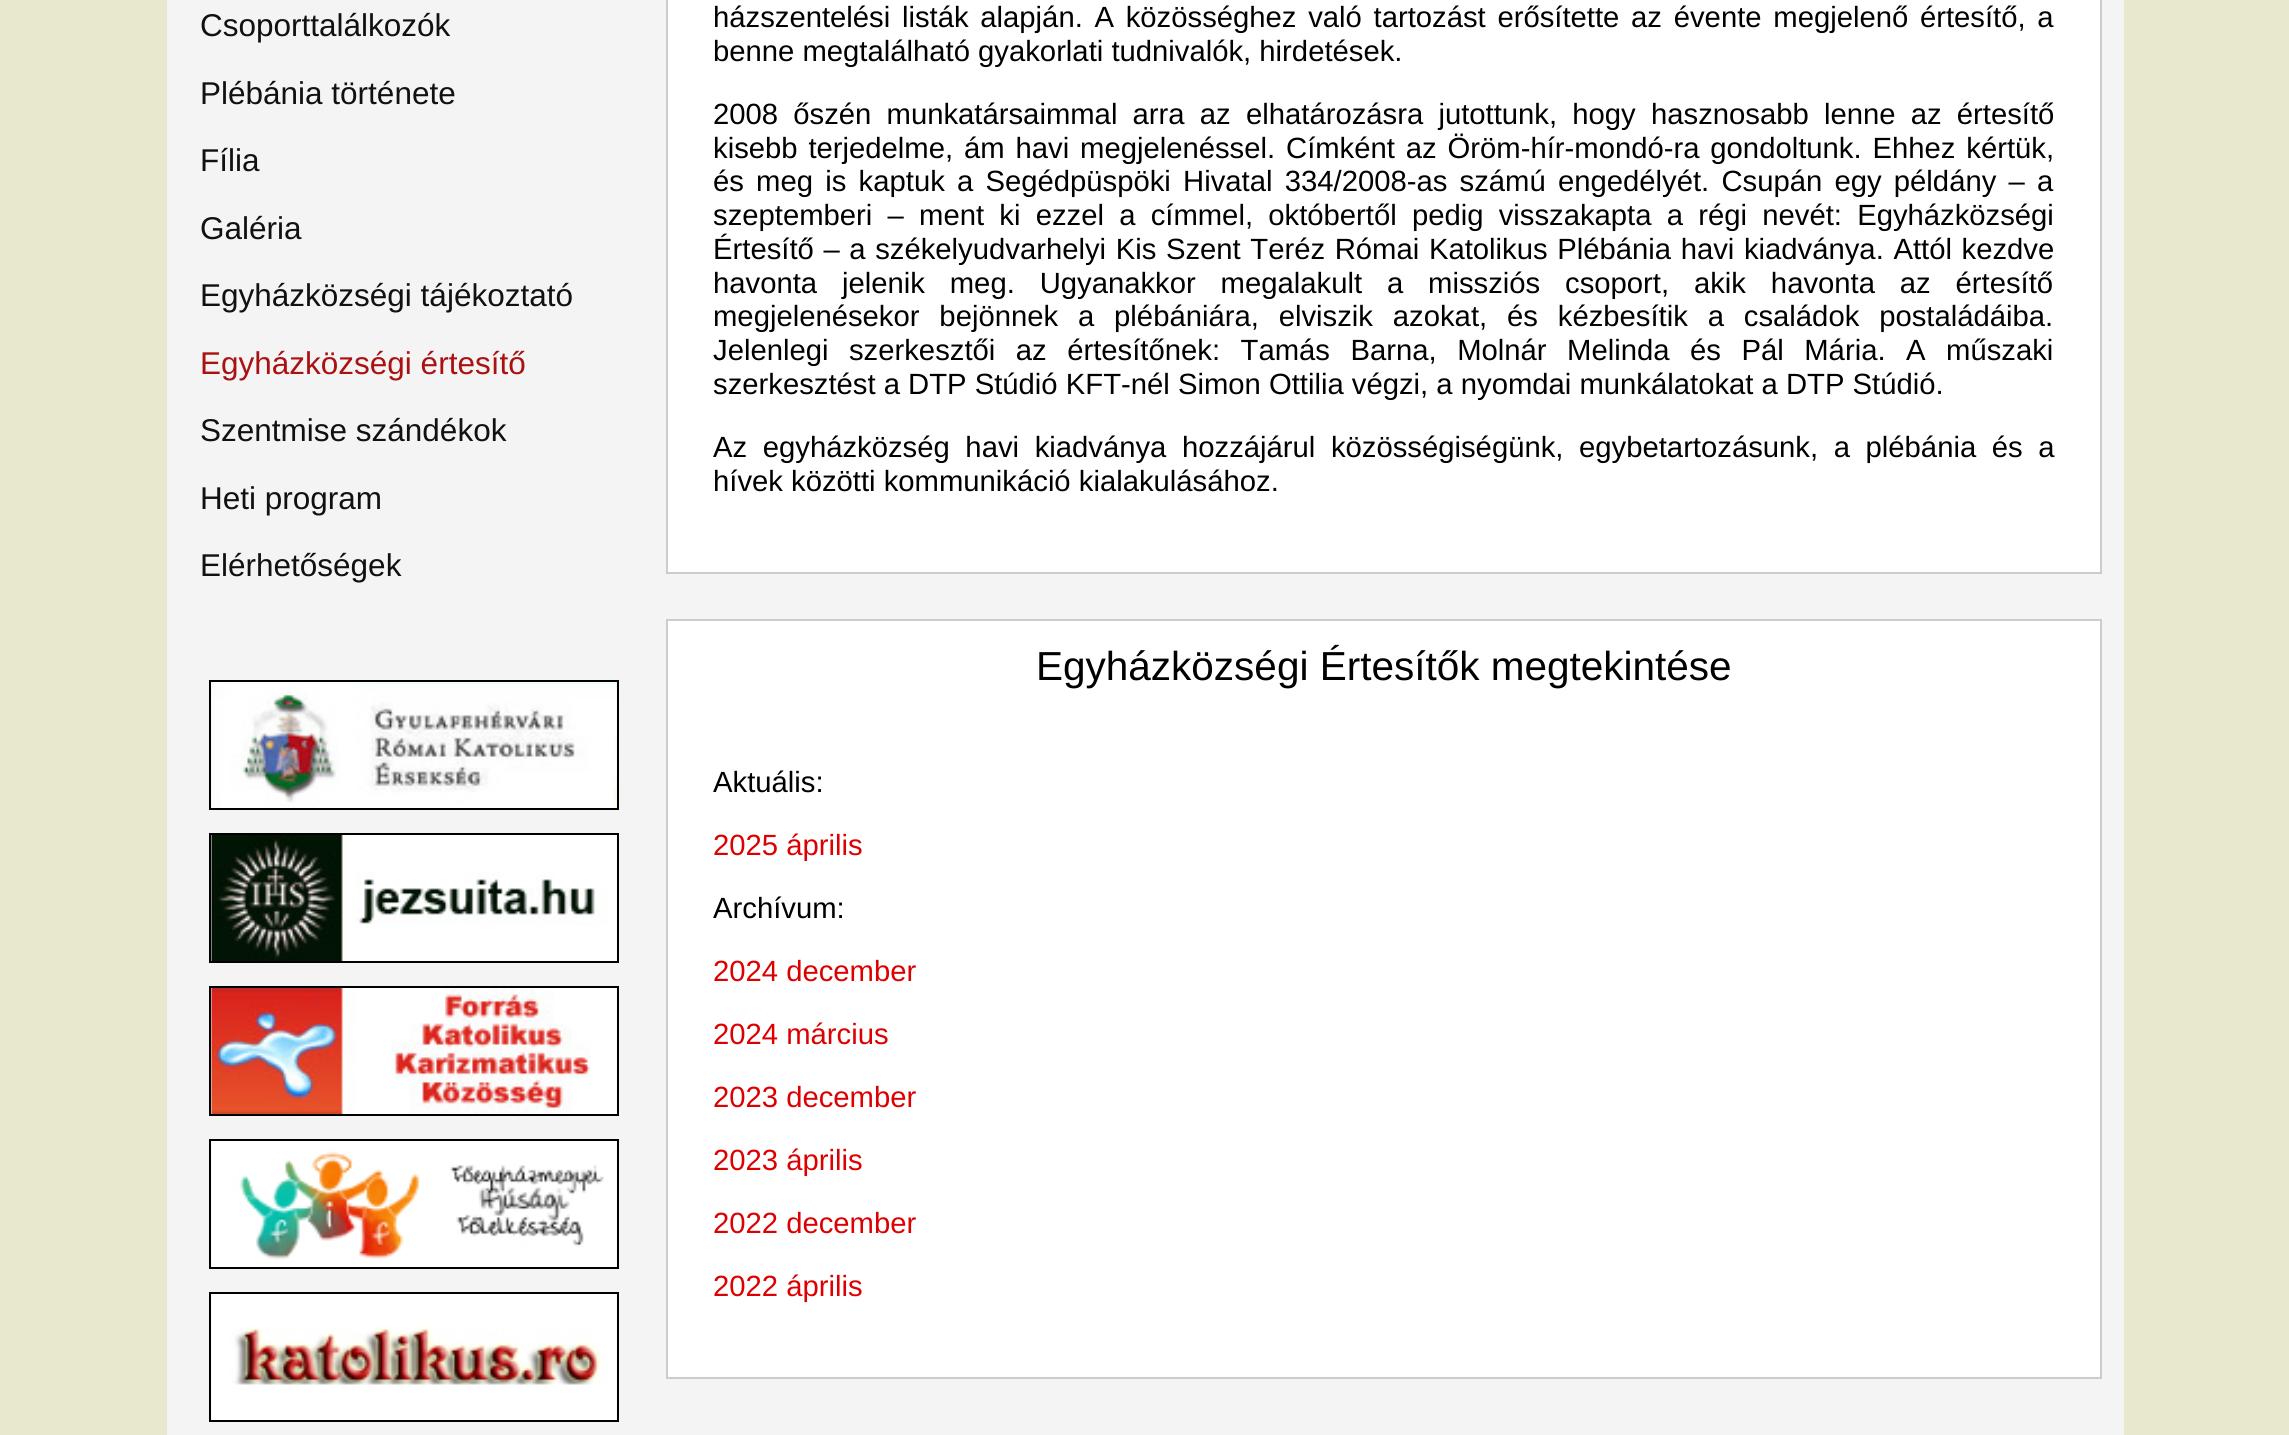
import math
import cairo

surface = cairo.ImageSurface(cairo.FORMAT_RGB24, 2289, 1435)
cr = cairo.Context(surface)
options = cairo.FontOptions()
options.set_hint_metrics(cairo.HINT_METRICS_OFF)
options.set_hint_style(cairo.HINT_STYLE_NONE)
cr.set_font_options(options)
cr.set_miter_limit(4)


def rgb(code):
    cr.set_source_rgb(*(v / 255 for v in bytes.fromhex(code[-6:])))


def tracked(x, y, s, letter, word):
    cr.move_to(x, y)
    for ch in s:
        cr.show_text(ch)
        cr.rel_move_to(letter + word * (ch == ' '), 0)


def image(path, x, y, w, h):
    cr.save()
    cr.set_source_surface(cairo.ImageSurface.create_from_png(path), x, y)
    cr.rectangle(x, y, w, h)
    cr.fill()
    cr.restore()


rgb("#e7e8ce")
cr.paint()
rgb("#f4f4f4")
cr.rectangle(167, 0, 1957, 1435)
cr.fill()
cr.rectangle(210, 681, 408, 128)
rgb("#000000")
cr.stroke()
image("img/1.png", 211, 682, 406, 126)
cr.rectangle(210, 834, 408, 128)
cr.stroke()
image("img/2.png", 211, 835, 406, 126)
cr.rectangle(210, 987, 408, 128)
cr.stroke()
image("img/3.png", 211, 988, 406, 126)
cr.rectangle(210, 1140, 408, 128)
cr.stroke()
image("img/4.png", 211, 1141, 406, 126)
cr.rectangle(210, 1293, 408, 128)
cr.stroke()
image("img/5.png", 211, 1294, 406, 126)
rgb("#ffffff")
cr.rectangle(667, -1, 1434, 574)
cr.fill_preserve()
rgb("#cccccc")
cr.stroke()
rgb("#ffffff")
cr.rectangle(667, 620, 1434, 758)
cr.fill_preserve()
rgb("#cccccc")
cr.stroke()
cr.select_font_face("Liberation Sans")
cr.set_font_size(31.5)
rgb("#111111")
for x, y, s in [
    (200, 36, "Csoporttalálkozók"),
    (200, 104, "Plébánia története"),
    (200, 171, "Fília"),
    (200, 239, "Galéria"),
    (200, 306, "Egyházközségi tájékoztató"),
]:
    cr.move_to(x, y)
    cr.show_text(s)
rgb("#aa1111")
cr.move_to(200, 374)
cr.show_text("Egyházközségi értesítő")
rgb("#111111")
for x, y, s in [
    (200, 441, "Szentmise szándékok"),
    (200, 509, "Heti program"),
    (200, 576, "Elérhetőségek"),
]:
    cr.move_to(x, y)
    cr.show_text(s)
cr.set_font_size(29.25)
rgb("#000000")
tracked(713, 27, "házszentelési listák alapján. A közösséghez való tartozást erősítette az évente megjelenő értesítő, a", 0, 3.6)
cr.move_to(713, 61)
cr.show_text("benne megtalálható gyakorlati tudnivalók, hirdetések.")
tracked(713, 124, "2008 őszén munkatársaimmal arra az elhatározásra jutottunk, hogy hasznosabb lenne az értesítő", 0, 7.1)
tracked(713, 158, "kisebb terjedelme, ám havi megjelenéssel. Címként az Öröm-hír-mondó-ra gondoltunk. Ehhez kértük,", 0, 2.75)
tracked(713, 191, "és meg is kaptuk a Segédpüspöki Hivatal 334/2008-as számú engedélyét. Csupán egy példány – a", 0, 4.1)
tracked(713, 225, "szeptemberi – ment ki ezzel a címmel, októbertől pedig visszakapta a régi nevét: Egyházközségi", 0, 7.1)
tracked(713, 259, "Értesítő – a székelyudvarhelyi Kis Szent Teréz Római Katolikus Plébánia havi kiadványa. Attól kezdve", 0, 1.5)
tracked(713, 293, "havonta jelenik meg. Ugyanakkor megalakult a missziós csoport, akik havonta az értesítő", 0, 16.75)
tracked(713, 326, "megjelenésekor bejönnek a plébániára, elviszik azokat, és kézbesítik a családok postaládáiba.", 0, 11.75)
tracked(713, 360, "Jelenlegi szerkesztői az értesítőnek: Tamás Barna, Molnár Melinda és Pál Mária. A műszaki", 0, 12.4)
cr.move_to(713, 394)
cr.show_text("szerkesztést a DTP Stúdió KFT-nél Simon Ottilia végzi, a nyomdai munkálatokat a DTP Stúdió.")
tracked(713, 457, "Az egyházközség havi kiadványa hozzájárul közösségiségünk, egybetartozásunk, a plébánia és a", 0, 7.5)
cr.move_to(713, 491)
cr.show_text("hívek közötti kommunikáció kialakulásához.")
cr.set_font_size(40.5)
cr.move_to(1036, 680)
cr.show_text("Egyházközségi Értesítők megtekintése")
cr.set_font_size(29.25)
cr.move_to(713, 792)
cr.show_text("Aktuális:")
rgb("#dd0000")
cr.move_to(713, 855)
cr.show_text("2025 április")
rgb("#000000")
cr.move_to(713, 918)
cr.show_text("Archívum:")
rgb("#dd0000")
for x, y, s in [
    (713, 981, "2024 december"),
    (713, 1044, "2024 március"),
    (713, 1107, "2023 december"),
    (713, 1170, "2023 április"),
    (713, 1233, "2022 december"),
    (713, 1296, "2022 április"),
]:
    cr.move_to(x, y)
    cr.show_text(s)
surface.write_to_png("page.png")
